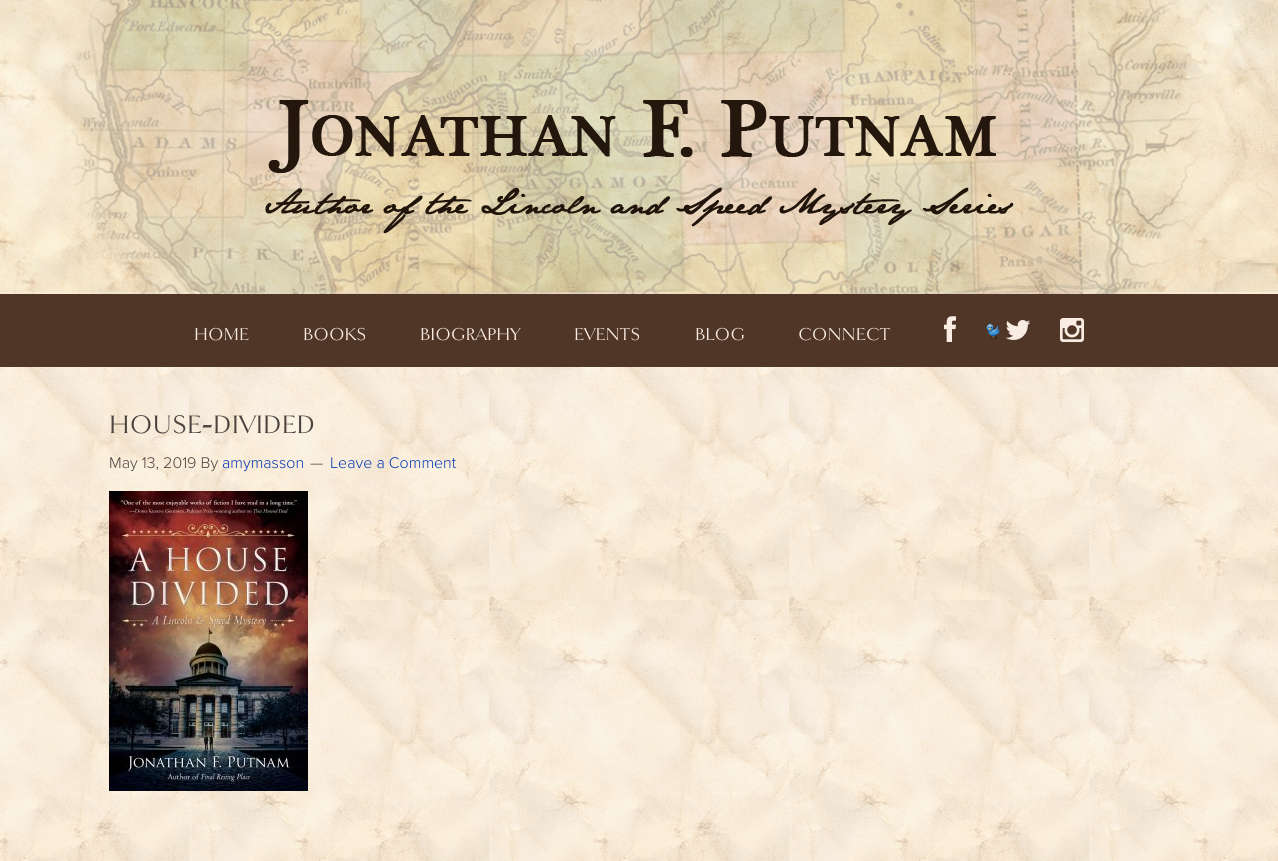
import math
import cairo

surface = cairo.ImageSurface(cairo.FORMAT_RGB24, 1278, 861)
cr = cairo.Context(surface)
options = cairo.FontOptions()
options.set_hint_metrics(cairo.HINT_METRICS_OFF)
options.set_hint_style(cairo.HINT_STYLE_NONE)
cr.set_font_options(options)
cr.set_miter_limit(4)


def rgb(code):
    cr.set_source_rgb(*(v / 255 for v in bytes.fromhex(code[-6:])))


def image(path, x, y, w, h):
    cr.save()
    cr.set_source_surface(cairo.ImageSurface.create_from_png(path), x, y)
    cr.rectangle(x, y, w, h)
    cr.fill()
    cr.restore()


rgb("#ffffff")
cr.paint()
image("img/1.png", 0, 0, 1278, 861)
image("img/2.png", 0, 0, 1278, 294)
image("img/3.png", 265, 100, 749, 134)
rgb("#503627")
cr.rectangle(0, 294, 1278, 73)
cr.fill()
image("img/4.png", 944, 316, 12, 26)
image("img/5.png", 986, 323, 14, 16)
image("img/6.png", 1005, 320, 26, 20)
image("img/7.png", 1060, 318, 24, 24)
image("img/8.png", 109, 491, 199, 300)
cr.select_font_face("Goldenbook")
cr.set_font_size(18)
rgb("#f8ece3")
for x, y, s in [
    (194, 340, "HOME"),
    (303, 340, "BOOKS"),
    (420, 340, "BIOGRAPHY"),
    (574, 340, "EVENTS"),
    (695, 340, "BLOG"),
    (798, 340, "CONNECT"),
]:
    cr.move_to(x, y)
    cr.show_text(s)
cr.set_font_size(26.5)
rgb("#4c423e")
cr.move_to(109, 433)
cr.show_text("HOUSE")
cr.set_font_size(38)
cr.move_to(202, 433)
cr.show_text("-")
cr.set_font_size(26.5)
cr.move_to(213, 433)
cr.show_text("DIVIDED")
cr.select_font_face("Proxima Nova Light")
cr.set_font_size(16)
cr.move_to(109, 468)
cr.show_text("May 13, 2019 By")
rgb("#0037b4")
cr.move_to(222, 468)
cr.show_text("amymasson")
rgb("#4c423e")
cr.move_to(310, 468)
cr.show_text("—")
rgb("#0037b4")
cr.move_to(330, 468)
cr.show_text("Leave a Comment")
surface.write_to_png("page.png")
